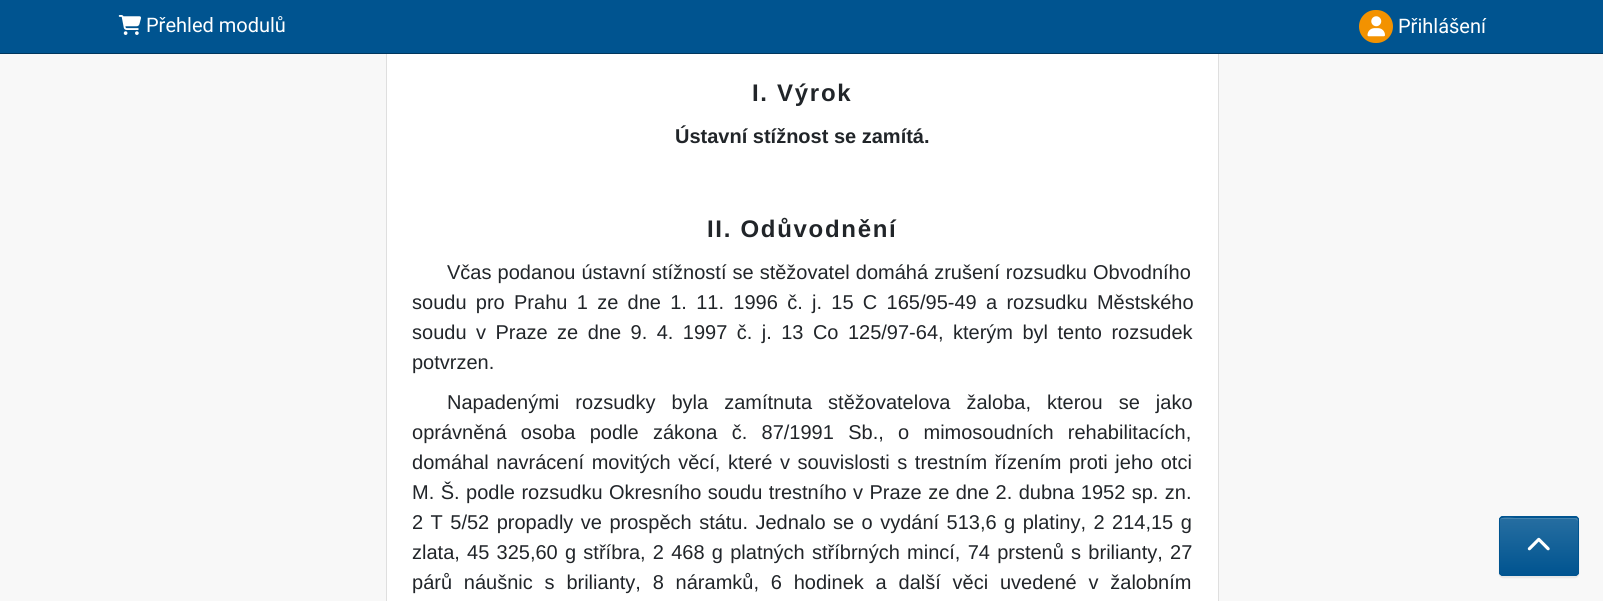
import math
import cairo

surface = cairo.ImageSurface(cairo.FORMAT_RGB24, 1603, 601)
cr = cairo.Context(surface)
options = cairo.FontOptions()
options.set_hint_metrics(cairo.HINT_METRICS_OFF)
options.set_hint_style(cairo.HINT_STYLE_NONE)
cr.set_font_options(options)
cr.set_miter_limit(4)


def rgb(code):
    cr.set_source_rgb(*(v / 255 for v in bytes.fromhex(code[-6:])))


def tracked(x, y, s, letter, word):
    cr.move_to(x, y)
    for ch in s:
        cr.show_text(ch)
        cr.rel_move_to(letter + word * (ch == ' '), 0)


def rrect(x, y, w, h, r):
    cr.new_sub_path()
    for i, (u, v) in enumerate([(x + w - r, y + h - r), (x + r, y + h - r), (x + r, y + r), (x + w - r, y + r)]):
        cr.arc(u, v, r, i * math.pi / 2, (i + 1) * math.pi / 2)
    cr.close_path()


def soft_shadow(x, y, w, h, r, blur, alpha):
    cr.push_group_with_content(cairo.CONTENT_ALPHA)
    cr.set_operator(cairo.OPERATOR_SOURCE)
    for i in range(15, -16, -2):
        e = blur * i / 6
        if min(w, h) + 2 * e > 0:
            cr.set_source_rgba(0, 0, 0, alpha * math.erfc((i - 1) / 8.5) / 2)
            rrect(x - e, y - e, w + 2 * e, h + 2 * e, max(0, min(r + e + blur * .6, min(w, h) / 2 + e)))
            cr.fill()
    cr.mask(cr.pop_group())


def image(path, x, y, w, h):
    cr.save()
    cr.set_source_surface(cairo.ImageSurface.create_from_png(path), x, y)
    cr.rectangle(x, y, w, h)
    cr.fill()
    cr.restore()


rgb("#f8f8f8")
cr.paint()
rgb("#ffffff")
cr.rectangle(387, 54, 831, 547)
cr.fill()
cr.rectangle(386.5, -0.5, 832, 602)
rgb("#dfdfdf")
cr.set_line_width(1)
cr.stroke()
rgb("#005490")
cr.rectangle(0, 0, 1603, 53)
cr.fill()
rgb("#00365d")
cr.rectangle(0, 53, 1603, 1)
cr.fill()
image("img/1.png", 118, 15, 23, 20)
rgb("#f39200")
rrect(1359, 10, 34, 33, 16.5)
cr.fill()
image("img/2.png", 1367, 16, 18, 21)
rgb("#000000")
soft_shadow(1499, 518, 80, 60, 4, 0.5, 0.07)
rgb("#005490")
rrect(1499, 516, 80, 60, 4)
cr.fill()
cr.save()
rrect(1499, 516, 80, 60, 4)
cr.clip()
gradient = cairo.LinearGradient(1539, 518, 1539, 575)
gradient.add_color_stop_rgba(0, 0.149, 0.431, 0.631, 1)
gradient.add_color_stop_rgba(1, 0, 0.329, 0.565, 1)
cr.set_source(gradient)
cr.rectangle(1499, 518, 80, 57)
cr.fill()
cr.restore()
cr.set_source_rgba(1, 1, 1, 0.15)
cr.new_path()
cr.move_to(1502, 519)
cr.line_to(1575, 519)
cr.line_to(1577, 520)
cr.line_to(1578, 521)
cr.curve_to(1578, 519, 1577, 518, 1576, 518)
cr.line_to(1515, 518)
cr.curve_to(1514, 518, 1500, 515, 1500, 521)
cr.curve_to(1500, 520, 1501, 519, 1502, 519)
cr.close_path()
cr.fill()
rrect(1499.5, 516.5, 79, 59, 3.5)
rgb("#005490")
cr.stroke()
image("img/3.png", 1527, 537, 23, 14)
cr.select_font_face("Roboto")
cr.set_font_size(20)
rgb("#ffffff")
cr.move_to(146, 32)
cr.show_text("Přehled modulů")
cr.move_to(1398, 33)
cr.show_text("Přihlášení")
cr.select_font_face("Liberation Sans", cairo.FONT_SLANT_NORMAL, cairo.FONT_WEIGHT_BOLD)
cr.set_font_size(24)
rgb("#212529")
tracked(752, 101, "I. Výrok", 1.7, 0)
cr.set_font_size(20)
cr.move_to(675, 143)
cr.show_text("Ústavní stížnost se zamítá.")
cr.set_font_size(24)
tracked(707, 237, "II. Odůvodnění", 1.7, 0)
cr.select_font_face("Liberation Sans")
cr.set_font_size(20)
tracked(447, 279, "Včas podanou ústavní stížností se stěžovatel domáhá zrušení rozsudku Obvodního", 0, 0.5)
tracked(412, 309, "soudu pro Prahu 1 ze dne 1. 11. 1996 č. j. 15 C 165/95-49 a rozsudku Městského", 0, 3.75)
tracked(412, 339, "soudu v Praze ze dne 9. 4. 1997 č. j. 13 Co 125/97-64, kterým byl tento rozsudek", 0, 3.9)
cr.move_to(412, 369)
cr.show_text("potvrzen.")
tracked(447, 409, "Napadenými rozsudky byla zamítnuta stěžovatelova žaloba, kterou se jako", 0, 10.5)
tracked(412, 439, "oprávněná osoba podle zákona č. 87/1991 Sb., o mimosoudních rehabilitacích,", 0, 8.75)
tracked(412, 469, "domáhal navrácení movitých věcí, které v souvislosti s trestním řízením proti jeho otci", 0, 2)
tracked(412, 499, "M. Š. podle rozsudku Okresního soudu trestního v Praze ze dne 2. dubna 1952 sp. zn.", 0, 0.9)
tracked(412, 529, "2 T 5/52 propadly ve prospěch státu. Jednalo se o vydání 513,6 g platiny, 2 214,15 g", 0, 1.9)
tracked(412, 559, "zlata, 45 325,60 g stříbra, 2 468 g platných stříbrných mincí, 74 prstenů s brilianty, 27", 0, 1.7)
tracked(412, 589, "párů náušnic s brilianty, 8 náramků, 6 hodinek a další věci uvedené v žalobním", 0, 6.25)
surface.write_to_png("page.png")
